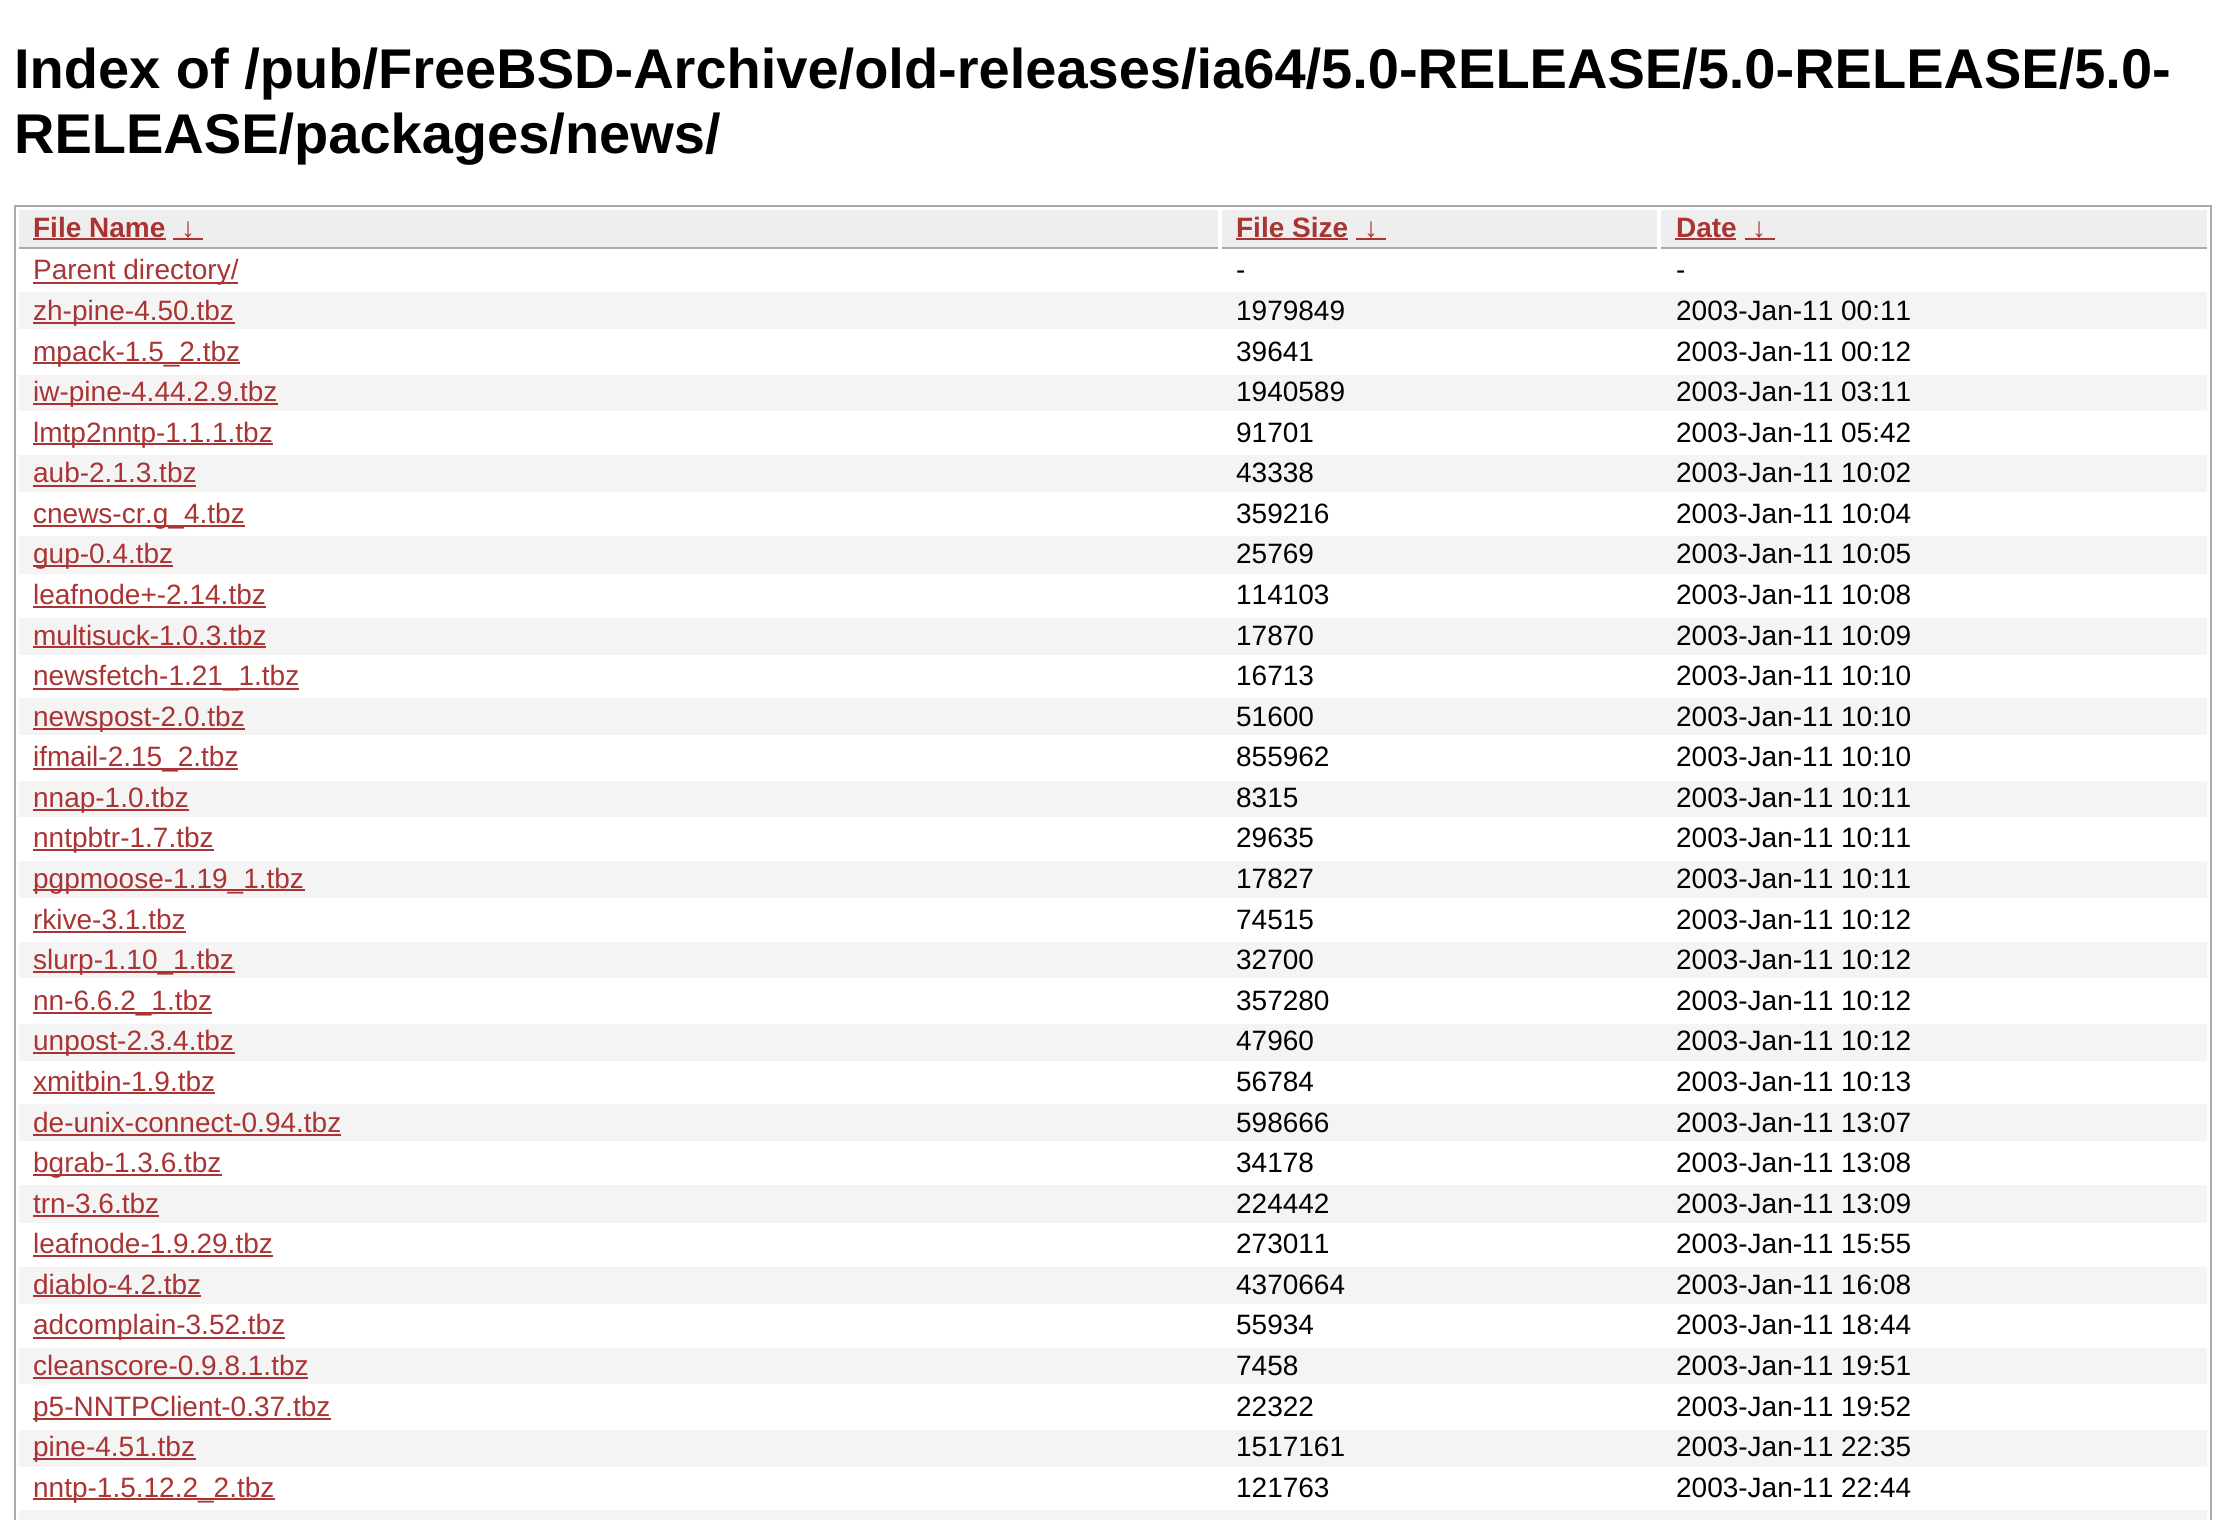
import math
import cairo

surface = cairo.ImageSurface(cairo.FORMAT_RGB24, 2226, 1520)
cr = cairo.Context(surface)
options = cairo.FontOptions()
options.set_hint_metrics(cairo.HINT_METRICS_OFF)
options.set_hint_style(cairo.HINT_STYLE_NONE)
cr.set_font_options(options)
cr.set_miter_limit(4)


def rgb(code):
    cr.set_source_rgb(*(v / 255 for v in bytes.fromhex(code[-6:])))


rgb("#ffffff")
cr.paint()
cr.rectangle(15, 206, 2196, 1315)
rgb("#aaaaaa")
cr.stroke()
for x, y, w, h, color in [
    (19, 210, 1199, 37, "#eeeeee"),
    (19, 247, 1199, 2, "#aaaaaa"),
    (33, 238, 133, 2, "#aa3333"),
    (173, 238, 30, 2, "#aa3333"),
    (1222, 210, 435, 37, "#eeeeee"),
    (1222, 247, 435, 2, "#aaaaaa"),
    (1236, 238, 112, 2, "#aa3333"),
    (1356, 238, 30, 2, "#aa3333"),
    (1661, 210, 546, 37, "#eeeeee"),
    (1661, 247, 546, 2, "#aaaaaa"),
    (1675, 238, 61, 2, "#aa3333"),
    (1745, 238, 30, 2, "#aa3333"),
    (33, 282, 205, 2, "#aa3333"),
    (19, 292, 2188, 37, "#f4f4f4"),
    (33, 322, 202, 2, "#aa3333"),
    (33, 362, 207, 2, "#aa3333"),
    (19, 375, 2188, 36, "#f4f4f4"),
    (33, 403, 245, 2, "#aa3333"),
    (33, 443, 240, 2, "#aa3333"),
    (19, 455, 2188, 37, "#f4f4f4"),
    (33, 485, 163, 2, "#aa3333"),
    (33, 525, 212, 2, "#aa3333"),
    (19, 536, 2188, 38, "#f4f4f4"),
    (33, 565, 140, 2, "#aa3333"),
    (33, 606, 233, 2, "#aa3333"),
    (19, 618, 2188, 37, "#f4f4f4"),
    (33, 646, 233, 2, "#aa3333"),
    (33, 688, 266, 2, "#aa3333"),
    (19, 698, 2188, 37, "#f4f4f4"),
    (33, 728, 212, 2, "#aa3333"),
    (33, 768, 205, 2, "#aa3333"),
    (19, 781, 2188, 36, "#f4f4f4"),
    (33, 809, 156, 2, "#aa3333"),
    (33, 849, 181, 2, "#aa3333"),
    (19, 861, 2188, 37, "#f4f4f4"),
    (33, 889, 272, 2, "#aa3333"),
    (33, 931, 153, 2, "#aa3333"),
    (19, 942, 2188, 36, "#f4f4f4"),
    (33, 971, 202, 2, "#aa3333"),
    (33, 1012, 179, 2, "#aa3333"),
    (19, 1024, 2188, 37, "#f4f4f4"),
    (33, 1052, 202, 2, "#aa3333"),
    (33, 1092, 182, 2, "#aa3333"),
    (19, 1104, 2188, 37, "#f4f4f4"),
    (33, 1134, 308, 2, "#aa3333"),
    (33, 1174, 189, 2, "#aa3333"),
    (19, 1185, 2188, 38, "#f4f4f4"),
    (33, 1215, 126, 2, "#aa3333"),
    (33, 1255, 240, 2, "#aa3333"),
    (19, 1267, 2188, 37, "#f4f4f4"),
    (33, 1295, 168, 2, "#aa3333"),
    (33, 1337, 252, 2, "#aa3333"),
    (19, 1348, 2188, 36, "#f4f4f4"),
    (33, 1377, 275, 2, "#aa3333"),
    (33, 1418, 298, 2, "#aa3333"),
    (19, 1430, 2188, 37, "#f4f4f4"),
    (33, 1458, 163, 2, "#aa3333"),
    (33, 1498, 242, 2, "#aa3333"),
    (19, 1510, 2188, 10, "#f4f4f4"),
]:
    rgb(color)
    cr.rectangle(x, y, w, h)
    cr.fill()
cr.select_font_face("Liberation Sans", cairo.FONT_SLANT_NORMAL, cairo.FONT_WEIGHT_BOLD)
cr.set_font_size(56)
rgb("#000000")
cr.move_to(14, 88)
cr.show_text("Index of /pub/FreeBSD-Archive/old-releases/ia64/5.0-RELEASE/5.0-RELEASE/5.0-")
cr.move_to(14, 153)
cr.show_text("RELEASE/packages/news/")
cr.set_font_size(28)
rgb("#aa3333")
for x, y, s in [
    (33, 237, "File Name"),
    (181, 237, "↓"),
    (1236, 237, "File Size"),
    (1364, 237, "↓"),
    (1676, 237, "Date"),
    (1752, 237, "↓"),
]:
    cr.move_to(x, y)
    cr.show_text(s)
cr.select_font_face("Liberation Sans")
cr.move_to(33, 279)
cr.show_text("Parent directory/")
rgb("#000000")
cr.move_to(1236, 279)
cr.show_text("-")
cr.move_to(1676, 279)
cr.show_text("-")
rgb("#aa3333")
cr.move_to(33, 320)
cr.show_text("zh-pine-4.50.tbz")
rgb("#000000")
cr.move_to(1236, 320)
cr.show_text("1979849")
cr.move_to(1676, 320)
cr.show_text("2003-Jan-11 00:11")
rgb("#aa3333")
cr.move_to(33, 361)
cr.show_text("mpack-1.5_2.tbz")
rgb("#000000")
cr.move_to(1236, 361)
cr.show_text("39641")
cr.move_to(1676, 361)
cr.show_text("2003-Jan-11 00:12")
rgb("#aa3333")
cr.move_to(33, 401)
cr.show_text("iw-pine-4.44.2.9.tbz")
rgb("#000000")
cr.move_to(1236, 401)
cr.show_text("1940589")
cr.move_to(1676, 401)
cr.show_text("2003-Jan-11 03:11")
rgb("#aa3333")
cr.move_to(33, 442)
cr.show_text("lmtp2nntp-1.1.1.tbz")
rgb("#000000")
cr.move_to(1236, 442)
cr.show_text("91701")
cr.move_to(1676, 442)
cr.show_text("2003-Jan-11 05:42")
rgb("#aa3333")
cr.move_to(33, 482)
cr.show_text("aub-2.1.3.tbz")
rgb("#000000")
cr.move_to(1236, 482)
cr.show_text("43338")
cr.move_to(1676, 482)
cr.show_text("2003-Jan-11 10:02")
rgb("#aa3333")
cr.move_to(33, 523)
cr.show_text("cnews-cr.g_4.tbz")
rgb("#000000")
cr.move_to(1236, 523)
cr.show_text("359216")
cr.move_to(1676, 523)
cr.show_text("2003-Jan-11 10:04")
rgb("#aa3333")
cr.move_to(33, 563)
cr.show_text("gup-0.4.tbz")
rgb("#000000")
cr.move_to(1236, 563)
cr.show_text("25769")
cr.move_to(1676, 563)
cr.show_text("2003-Jan-11 10:05")
rgb("#aa3333")
cr.move_to(33, 604)
cr.show_text("leafnode+-2.14.tbz")
rgb("#000000")
cr.move_to(1236, 604)
cr.show_text("114103")
cr.move_to(1676, 604)
cr.show_text("2003-Jan-11 10:08")
rgb("#aa3333")
cr.move_to(33, 645)
cr.show_text("multisuck-1.0.3.tbz")
rgb("#000000")
cr.move_to(1236, 645)
cr.show_text("17870")
cr.move_to(1676, 645)
cr.show_text("2003-Jan-11 10:09")
rgb("#aa3333")
cr.move_to(33, 685)
cr.show_text("newsfetch-1.21_1.tbz")
rgb("#000000")
cr.move_to(1236, 685)
cr.show_text("16713")
cr.move_to(1676, 685)
cr.show_text("2003-Jan-11 10:10")
rgb("#aa3333")
cr.move_to(33, 726)
cr.show_text("newspost-2.0.tbz")
rgb("#000000")
cr.move_to(1236, 726)
cr.show_text("51600")
cr.move_to(1676, 726)
cr.show_text("2003-Jan-11 10:10")
rgb("#aa3333")
cr.move_to(33, 766)
cr.show_text("ifmail-2.15_2.tbz")
rgb("#000000")
cr.move_to(1236, 766)
cr.show_text("855962")
cr.move_to(1676, 766)
cr.show_text("2003-Jan-11 10:10")
rgb("#aa3333")
cr.move_to(33, 807)
cr.show_text("nnap-1.0.tbz")
rgb("#000000")
cr.move_to(1236, 807)
cr.show_text("8315")
cr.move_to(1676, 807)
cr.show_text("2003-Jan-11 10:11")
rgb("#aa3333")
cr.move_to(33, 847)
cr.show_text("nntpbtr-1.7.tbz")
rgb("#000000")
cr.move_to(1236, 847)
cr.show_text("29635")
cr.move_to(1676, 847)
cr.show_text("2003-Jan-11 10:11")
rgb("#aa3333")
cr.move_to(33, 888)
cr.show_text("pgpmoose-1.19_1.tbz")
rgb("#000000")
cr.move_to(1236, 888)
cr.show_text("17827")
cr.move_to(1676, 888)
cr.show_text("2003-Jan-11 10:11")
rgb("#aa3333")
cr.move_to(33, 929)
cr.show_text("rkive-3.1.tbz")
rgb("#000000")
cr.move_to(1236, 929)
cr.show_text("74515")
cr.move_to(1676, 929)
cr.show_text("2003-Jan-11 10:12")
rgb("#aa3333")
cr.move_to(33, 969)
cr.show_text("slurp-1.10_1.tbz")
rgb("#000000")
cr.move_to(1236, 969)
cr.show_text("32700")
cr.move_to(1676, 969)
cr.show_text("2003-Jan-11 10:12")
rgb("#aa3333")
cr.move_to(33, 1010)
cr.show_text("nn-6.6.2_1.tbz")
rgb("#000000")
cr.move_to(1236, 1010)
cr.show_text("357280")
cr.move_to(1676, 1010)
cr.show_text("2003-Jan-11 10:12")
rgb("#aa3333")
cr.move_to(33, 1050)
cr.show_text("unpost-2.3.4.tbz")
rgb("#000000")
cr.move_to(1236, 1050)
cr.show_text("47960")
cr.move_to(1676, 1050)
cr.show_text("2003-Jan-11 10:12")
rgb("#aa3333")
cr.move_to(33, 1091)
cr.show_text("xmitbin-1.9.tbz")
rgb("#000000")
cr.move_to(1236, 1091)
cr.show_text("56784")
cr.move_to(1676, 1091)
cr.show_text("2003-Jan-11 10:13")
rgb("#aa3333")
cr.move_to(33, 1132)
cr.show_text("de-unix-connect-0.94.tbz")
rgb("#000000")
cr.move_to(1236, 1132)
cr.show_text("598666")
cr.move_to(1676, 1132)
cr.show_text("2003-Jan-11 13:07")
rgb("#aa3333")
cr.move_to(33, 1172)
cr.show_text("bgrab-1.3.6.tbz")
rgb("#000000")
cr.move_to(1236, 1172)
cr.show_text("34178")
cr.move_to(1676, 1172)
cr.show_text("2003-Jan-11 13:08")
rgb("#aa3333")
cr.move_to(33, 1213)
cr.show_text("trn-3.6.tbz")
rgb("#000000")
cr.move_to(1236, 1213)
cr.show_text("224442")
cr.move_to(1676, 1213)
cr.show_text("2003-Jan-11 13:09")
rgb("#aa3333")
cr.move_to(33, 1253)
cr.show_text("leafnode-1.9.29.tbz")
rgb("#000000")
cr.move_to(1236, 1253)
cr.show_text("273011")
cr.move_to(1676, 1253)
cr.show_text("2003-Jan-11 15:55")
rgb("#aa3333")
cr.move_to(33, 1294)
cr.show_text("diablo-4.2.tbz")
rgb("#000000")
cr.move_to(1236, 1294)
cr.show_text("4370664")
cr.move_to(1676, 1294)
cr.show_text("2003-Jan-11 16:08")
rgb("#aa3333")
cr.move_to(33, 1334)
cr.show_text("adcomplain-3.52.tbz")
rgb("#000000")
cr.move_to(1236, 1334)
cr.show_text("55934")
cr.move_to(1676, 1334)
cr.show_text("2003-Jan-11 18:44")
rgb("#aa3333")
cr.move_to(33, 1375)
cr.show_text("cleanscore-0.9.8.1.tbz")
rgb("#000000")
cr.move_to(1236, 1375)
cr.show_text("7458")
cr.move_to(1676, 1375)
cr.show_text("2003-Jan-11 19:51")
rgb("#aa3333")
cr.move_to(33, 1416)
cr.show_text("p5-NNTPClient-0.37.tbz")
rgb("#000000")
cr.move_to(1236, 1416)
cr.show_text("22322")
cr.move_to(1676, 1416)
cr.show_text("2003-Jan-11 19:52")
rgb("#aa3333")
cr.move_to(33, 1456)
cr.show_text("pine-4.51.tbz")
rgb("#000000")
cr.move_to(1236, 1456)
cr.show_text("1517161")
cr.move_to(1676, 1456)
cr.show_text("2003-Jan-11 22:35")
rgb("#aa3333")
cr.move_to(33, 1497)
cr.show_text("nntp-1.5.12.2_2.tbz")
rgb("#000000")
cr.move_to(1236, 1497)
cr.show_text("121763")
cr.move_to(1676, 1497)
cr.show_text("2003-Jan-11 22:44")
surface.write_to_png("page.png")
